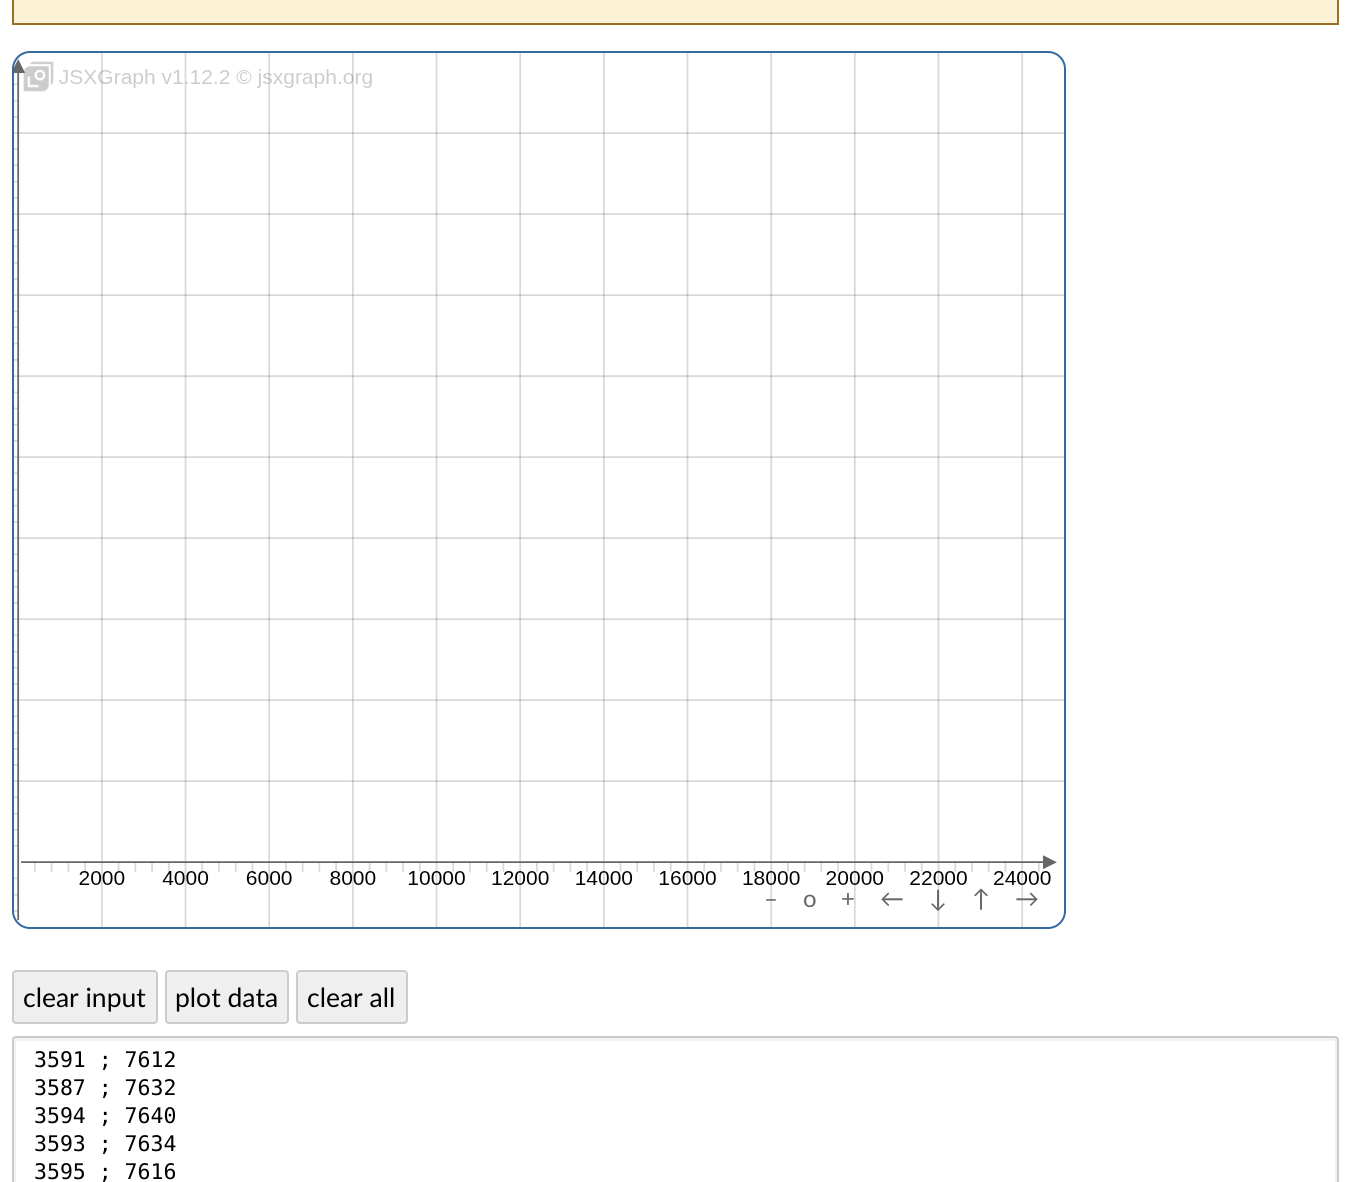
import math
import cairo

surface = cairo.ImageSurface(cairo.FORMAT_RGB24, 1351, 1182)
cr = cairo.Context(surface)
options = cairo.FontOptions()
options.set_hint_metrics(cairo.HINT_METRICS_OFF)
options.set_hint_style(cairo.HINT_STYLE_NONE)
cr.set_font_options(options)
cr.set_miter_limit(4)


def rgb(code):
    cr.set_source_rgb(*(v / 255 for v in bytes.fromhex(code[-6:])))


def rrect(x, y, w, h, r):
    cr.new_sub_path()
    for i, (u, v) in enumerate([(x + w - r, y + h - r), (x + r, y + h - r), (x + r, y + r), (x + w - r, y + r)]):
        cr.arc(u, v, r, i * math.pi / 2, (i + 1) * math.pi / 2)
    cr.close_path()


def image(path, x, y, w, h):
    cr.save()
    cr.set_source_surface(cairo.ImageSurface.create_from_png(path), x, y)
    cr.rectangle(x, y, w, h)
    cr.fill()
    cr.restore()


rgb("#ffffff")
cr.paint()
rgb("#fdf2d5")
cr.rectangle(13, -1, 1325, 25)
cr.fill_preserve()
rgb("#987027")
cr.stroke()
rrect(13, 52, 1052, 876, 17)
rgb("#356aa0")
cr.stroke()
image("img/1.png", 14, 52, 1050, 875)
rgb("#efefef")
rrect(13, 971, 144, 52, 3)
cr.fill_preserve()
rgb("#c8ccd1")
cr.stroke()
rgb("#efefef")
rrect(166, 971, 122, 52, 3)
cr.fill_preserve()
rgb("#c8ccd1")
cr.stroke()
rgb("#efefef")
rrect(297, 971, 110, 52, 3)
cr.fill_preserve()
rgb("#c8ccd1")
cr.stroke()
rgb("#f2f2f2")
cr.new_path()
cr.move_to(16, 1041)
cr.line_to(1335, 1041)
cr.line_to(1335, 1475)
cr.curve_to(1336, 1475, 1337, 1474, 1337, 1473)
cr.line_to(1337, 1040)
cr.curve_to(1337, 1039, 1336, 1038, 1335, 1038)
cr.line_to(16, 1038)
cr.curve_to(15, 1038, 14, 1039, 14, 1040)
cr.line_to(14, 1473)
cr.curve_to(14, 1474, 15, 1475, 16, 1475)
cr.close_path()
cr.fill()
rrect(13, 1037, 1325, 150, 3)
rgb("#c8ccd1")
cr.stroke()
cr.select_font_face("Lato")
cr.set_font_size(24)
rgb("#666666")
for x, y, s in [
    (764, 907, "–"),
    (803, 907, "o"),
    (841, 907, "+"),
    (880, 907, "←"),
    (929, 907, "↓"),
    (972, 907, "↑"),
    (1015, 907, "→"),
]:
    cr.move_to(x, y)
    cr.show_text(s)
cr.set_font_size(26.5)
rgb("#000000")
for x, y, s in [
    (23, 1007, "clear input"),
    (175, 1007, "plot data"),
    (307, 1007, "clear all"),
]:
    cr.move_to(x, y)
    cr.show_text(s)
cr.select_font_face("DejaVu Sans Mono")
cr.set_font_size(21.5)
for x, y, s in [
    (34, 1067, "3591 ; 7612"),
    (34, 1095, "3587 ; 7632"),
    (34, 1123, "3594 ; 7640"),
    (34, 1151, "3593 ; 7634"),
    (34, 1179, "3595 ; 7616"),
]:
    cr.move_to(x, y)
    cr.show_text(s)
surface.write_to_png("page.png")
